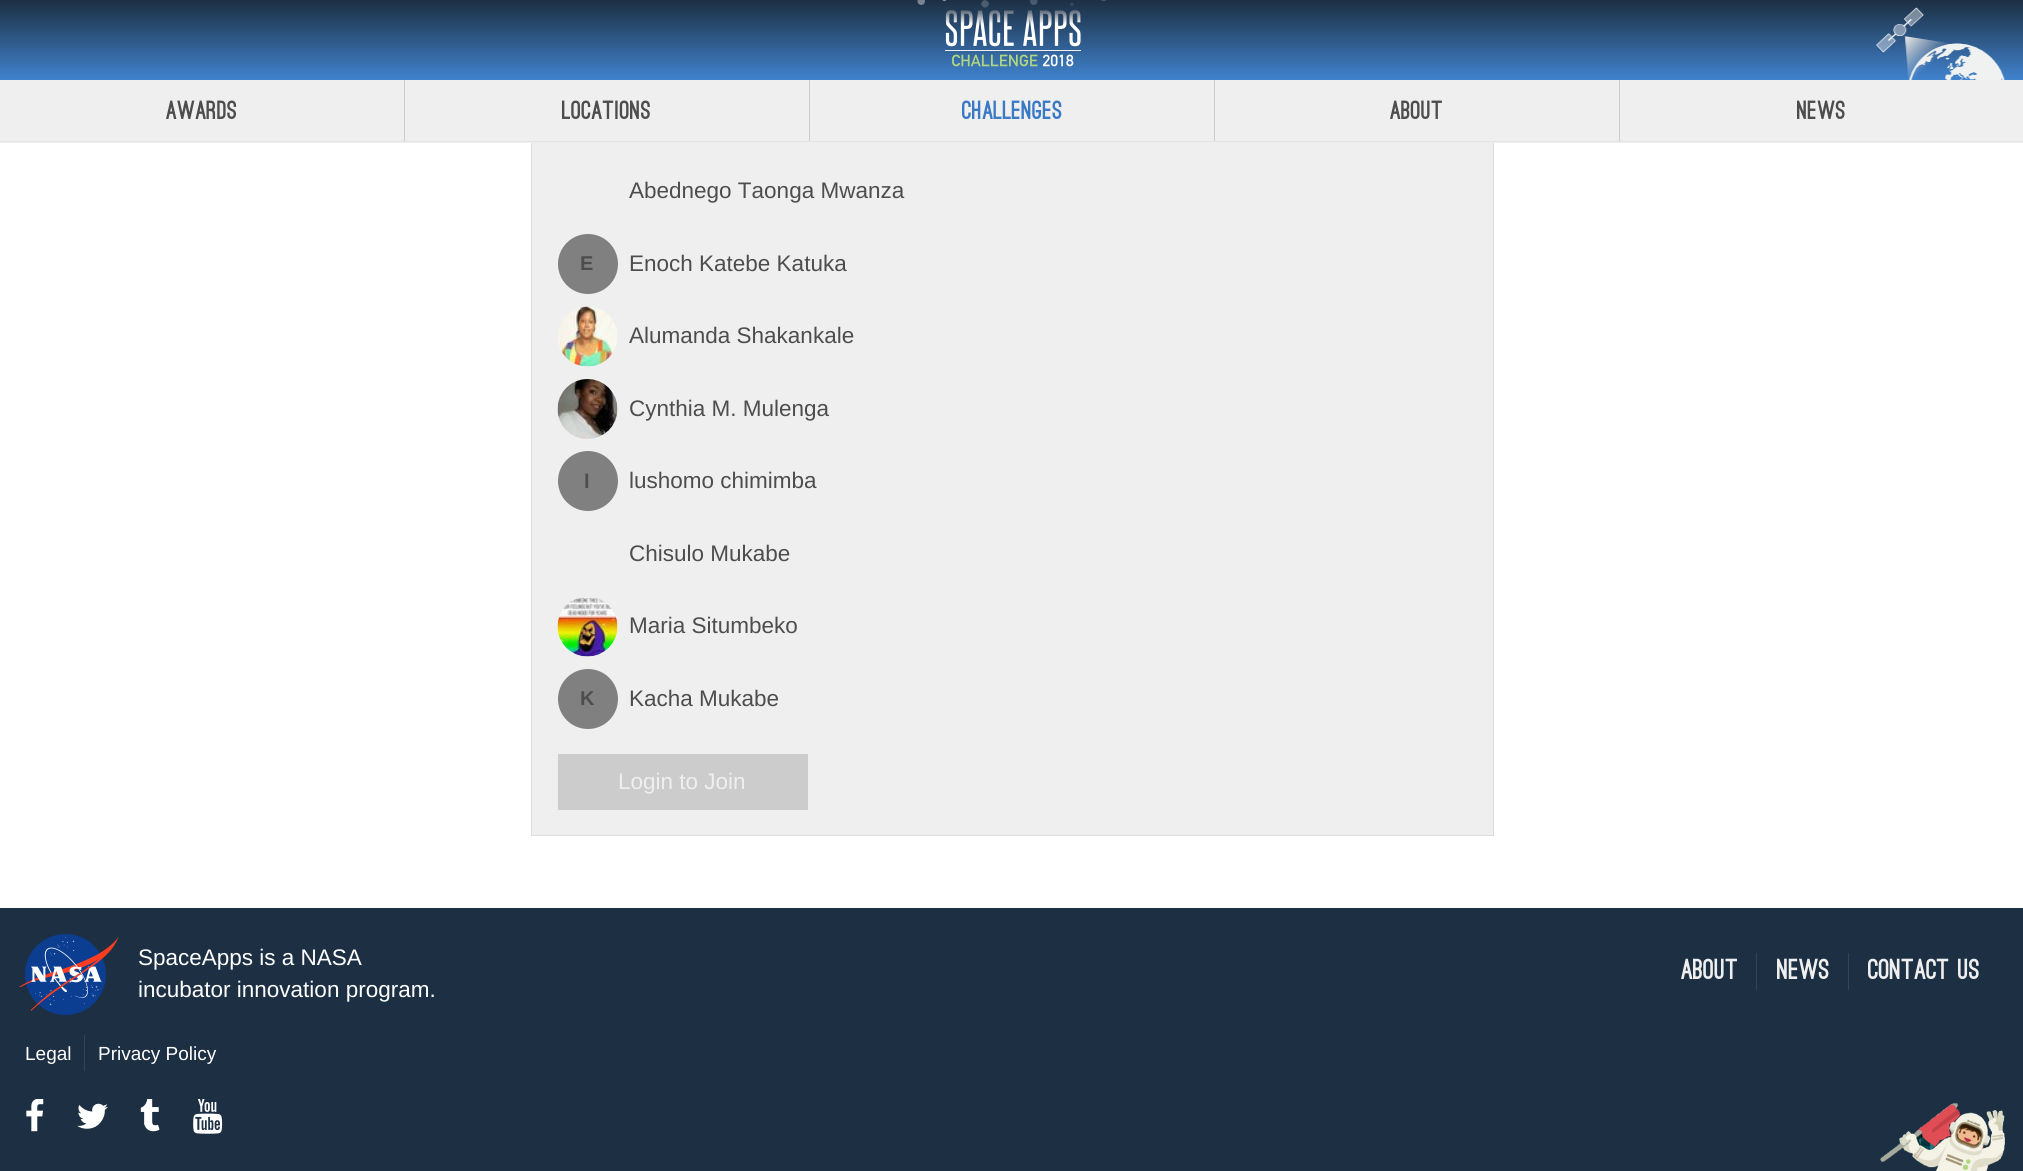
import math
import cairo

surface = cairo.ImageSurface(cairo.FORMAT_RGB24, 2023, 1171)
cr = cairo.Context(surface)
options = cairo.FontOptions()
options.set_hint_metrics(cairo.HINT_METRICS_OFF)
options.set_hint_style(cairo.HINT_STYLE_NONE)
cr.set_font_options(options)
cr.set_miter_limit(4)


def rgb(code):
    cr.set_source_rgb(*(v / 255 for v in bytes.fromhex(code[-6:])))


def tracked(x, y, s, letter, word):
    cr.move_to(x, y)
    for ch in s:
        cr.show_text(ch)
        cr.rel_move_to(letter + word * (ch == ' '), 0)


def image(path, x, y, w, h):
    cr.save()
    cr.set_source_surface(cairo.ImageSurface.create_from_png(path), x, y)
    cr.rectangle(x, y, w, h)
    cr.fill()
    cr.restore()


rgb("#ffffff")
cr.paint()
rgb("#efefef")
cr.rectangle(532, 143, 961, 692)
cr.fill()
cr.rectangle(531.5, 86.5, 962, 749)
rgb("#dddddd")
cr.set_line_width(1)
cr.stroke()
rgb("#efefef")
cr.rectangle(0, 80, 2023, 63)
cr.fill()
rgb("#e3e3e3")
cr.rectangle(0, 141, 2023, 1)
cr.fill()
gradient = cairo.LinearGradient(1012, 80, 1012, 0)
gradient.add_color_stop_rgba(0, 0.251, 0.51, 0.804, 1)
gradient.add_color_stop_rgba(1, 0.11, 0.184, 0.263, 1)
cr.set_source(gradient)
cr.rectangle(0, 0, 2023, 80)
cr.fill()
image("img/1.png", 917, 0, 190, 8)
image("img/2.png", 945, 10, 136, 57)
image("img/3.png", 1876, 7, 129, 73)
for x, y, w, h, color in [
    (404, 80, 1, 61, "#cccccc"),
    (809, 80, 1, 61, "#cccccc"),
    (1214, 80, 1, 61, "#cccccc"),
    (1619, 80, 1, 61, "#cccccc"),
]:
    rgb(color)
    cr.rectangle(x, y, w, h)
    cr.fill()
rgb("#808080")
cr.arc(588, 264, 30, 0, 2 * math.pi)
cr.fill()
image("img/4.png", 558, 306, 59, 61)
image("img/5.png", 557, 379, 61, 60)
cr.arc(588, 481, 30, 0, 2 * math.pi)
cr.fill()
image("img/6.png", 557, 597, 61, 60)
cr.arc(588, 699, 30, 0, 2 * math.pi)
cr.fill()
rgb("#cccccc")
cr.rectangle(558, 754, 250, 56)
cr.fill()
rgb("#1c2f43")
cr.rectangle(0, 908, 2023, 263)
cr.fill()
image("img/7.png", 19, 934, 100, 81)
for x, y, w, h, color in [
    (1756, 953, 1, 37, "#334456"),
    (1848, 953, 1, 37, "#334456"),
    (84, 1035, 1, 36, "#334456"),
]:
    rgb(color)
    cr.rectangle(x, y, w, h)
    cr.fill()
image("img/8.png", 26, 1099, 18, 33)
image("img/9.png", 77, 1103, 31, 26)
image("img/10.png", 140, 1099, 20, 33)
image("img/11.png", 193, 1099, 30, 35)
image("img/12.png", 1880, 1102, 125, 69)
cr.select_font_face("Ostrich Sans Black")
cr.set_font_size(25)
rgb("#4d4d4d")
tracked(166, 119, "Awards", 0.25, 0)
tracked(562, 119, "Locations", 0.25, 0)
rgb("#3979c5")
tracked(962, 119, "Challenges", 0.25, 0)
rgb("#4d4d4d")
tracked(1390, 119, "About", 0.25, 0)
tracked(1797, 119, "News", 0.25, 0)
cr.select_font_face("Liberation Sans")
cr.set_font_size(22.5)
cr.move_to(629, 198)
cr.show_text("Abednego Taonga Mwanza")
cr.select_font_face("Liberation Sans", cairo.FONT_SLANT_NORMAL, cairo.FONT_WEIGHT_BOLD)
cr.set_font_size(20)
cr.move_to(580, 270)
cr.show_text("E")
cr.select_font_face("Liberation Sans")
cr.set_font_size(22.5)
for x, y, s in [
    (629, 271, "Enoch Katebe Katuka"),
    (629, 343, "Alumanda Shakankale"),
    (629, 416, "Cynthia M. Mulenga"),
]:
    cr.move_to(x, y)
    cr.show_text(s)
cr.select_font_face("Liberation Sans", cairo.FONT_SLANT_NORMAL, cairo.FONT_WEIGHT_BOLD)
cr.set_font_size(20)
cr.move_to(584, 488)
cr.show_text("l")
cr.select_font_face("Liberation Sans")
cr.set_font_size(22.5)
for x, y, s in [
    (629, 488, "lushomo chimimba"),
    (629, 561, "Chisulo Mukabe"),
    (629, 633, "Maria Situmbeko"),
]:
    cr.move_to(x, y)
    cr.show_text(s)
cr.select_font_face("Liberation Sans", cairo.FONT_SLANT_NORMAL, cairo.FONT_WEIGHT_BOLD)
cr.set_font_size(20)
cr.move_to(580, 705)
cr.show_text("K")
cr.select_font_face("Liberation Sans")
cr.set_font_size(22.5)
cr.move_to(629, 706)
cr.show_text("Kacha Mukabe")
rgb("#efefef")
cr.move_to(618, 789)
cr.show_text("Login to Join")
rgb("#ffffff")
cr.move_to(138, 965)
cr.show_text("SpaceApps is a NASA")
cr.move_to(138, 997)
cr.show_text("incubator innovation program.")
cr.select_font_face("Ostrich Sans Black")
cr.set_font_size(27.5)
rgb("#efefef")
for x, y, s in [
    (1681, 979, "About"),
    (1777, 979, "News"),
    (1868, 979, "Contact Us"),
]:
    cr.move_to(x, y)
    cr.show_text(s)
cr.select_font_face("Liberation Sans")
cr.set_font_size(19)
rgb("#ffffff")
cr.move_to(25, 1060)
cr.show_text("Legal")
cr.move_to(98, 1060)
cr.show_text("Privacy Policy")
surface.write_to_png("page.png")
